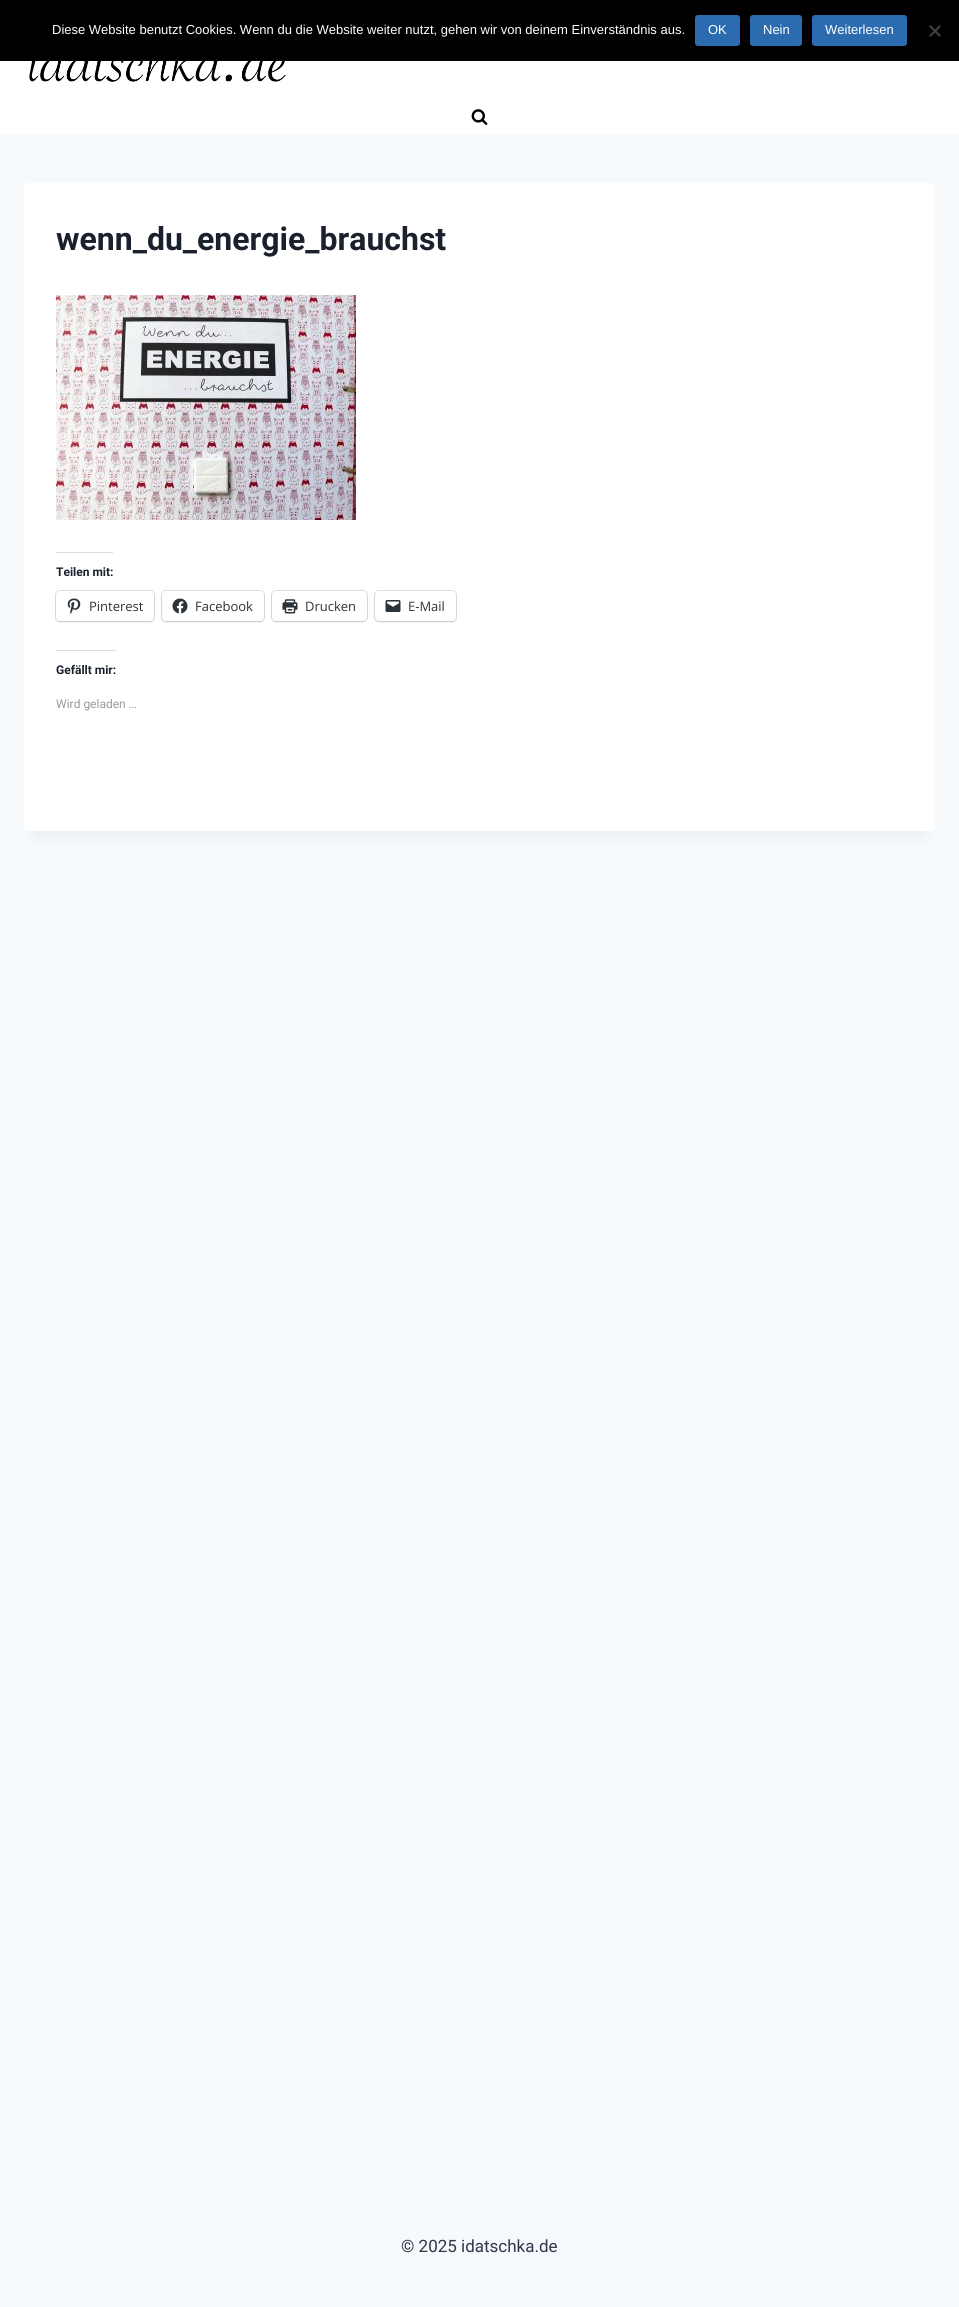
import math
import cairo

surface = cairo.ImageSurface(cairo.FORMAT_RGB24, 959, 2307)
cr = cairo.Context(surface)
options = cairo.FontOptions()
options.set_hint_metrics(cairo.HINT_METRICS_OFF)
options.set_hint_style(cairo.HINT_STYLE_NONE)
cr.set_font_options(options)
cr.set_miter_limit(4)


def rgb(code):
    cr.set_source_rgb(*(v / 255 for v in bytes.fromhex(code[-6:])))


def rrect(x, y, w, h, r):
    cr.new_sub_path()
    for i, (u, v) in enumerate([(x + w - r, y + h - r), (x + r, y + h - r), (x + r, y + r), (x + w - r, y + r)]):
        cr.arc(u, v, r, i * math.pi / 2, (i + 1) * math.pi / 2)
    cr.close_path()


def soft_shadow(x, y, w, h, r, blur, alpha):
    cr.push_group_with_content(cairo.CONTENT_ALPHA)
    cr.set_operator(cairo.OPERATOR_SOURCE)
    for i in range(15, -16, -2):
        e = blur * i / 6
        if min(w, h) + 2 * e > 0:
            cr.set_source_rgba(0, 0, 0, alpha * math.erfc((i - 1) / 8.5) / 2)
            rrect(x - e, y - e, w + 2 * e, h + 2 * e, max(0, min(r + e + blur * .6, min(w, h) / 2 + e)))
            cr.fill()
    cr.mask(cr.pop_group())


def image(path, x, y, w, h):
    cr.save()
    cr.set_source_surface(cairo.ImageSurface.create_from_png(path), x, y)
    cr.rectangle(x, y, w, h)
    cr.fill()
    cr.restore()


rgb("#f7fafc")
cr.paint()
rgb("#000000")
cr.rectangle(0, 0, 959, 61)
cr.fill()
rgb("#2b6cb0")
rrect(695, 15, 45, 31, 3)
cr.fill()
rrect(750, 15, 52, 31, 3)
cr.fill()
rrect(812, 15, 95, 31, 3)
cr.fill()
rgb("#404040")
cr.new_path()
cr.move_to(939.5, 25)
cr.line_to(941, 26.5)
cr.line_to(930.5, 37)
cr.line_to(929, 35.5)
cr.close_path()
cr.fill()
cr.new_path()
cr.move_to(929, 26.5)
cr.line_to(930.5, 25)
cr.line_to(941, 35.5)
cr.line_to(939.5, 37)
cr.close_path()
cr.fill()
rgb("#ffffff")
cr.rectangle(0, 61, 959, 74)
cr.fill()
image("img/1.png", 29, 61, 257, 21)
image("img/2.png", 471, 109, 17, 16)
rgb("#000000")
soft_shadow(34, 208, 891, 628, 0, 7.5, 0.05)
rgb("#ffffff")
rrect(24, 183, 911, 648, 4)
cr.fill()
image("img/3.png", 56, 295, 300, 225)
rgb("#dcdcde")
cr.rectangle(56, 552, 57, 1)
cr.fill()
rrect(55.5, 590.5, 99, 31, 4.5)
rgb("#e0e0e0")
cr.set_line_width(1)
cr.stroke()
rgb("#000000")
soft_shadow(56, 592, 98, 30, 4, 1, 0.12)
rgb("#ffffff")
rrect(56, 591, 98, 30, 4)
cr.fill()
image("img/4.png", 67, 598, 14, 16)
rrect(161.5, 590.5, 103, 31, 4.5)
rgb("#e0e0e0")
cr.stroke()
rgb("#000000")
soft_shadow(162, 592, 102, 30, 4, 1, 0.12)
rgb("#ffffff")
rrect(162, 591, 102, 30, 4)
cr.fill()
image("img/5.png", 172, 598, 16, 16)
rrect(271.5, 590.5, 96, 31, 4.5)
rgb("#e0e0e0")
cr.stroke()
rgb("#000000")
soft_shadow(272, 592, 95, 30, 4, 1, 0.12)
rgb("#ffffff")
rrect(272, 591, 95, 30, 4)
cr.fill()
image("img/6.png", 282, 599, 16, 15)
rrect(374.5, 590.5, 82, 31, 4.5)
rgb("#e0e0e0")
cr.stroke()
rgb("#000000")
soft_shadow(375, 592, 81, 30, 4, 1, 0.12)
rgb("#ffffff")
rrect(375, 591, 81, 30, 4)
cr.fill()
image("img/7.png", 385, 600, 16, 12)
rgb("#dcdcde")
cr.rectangle(56, 650, 60, 1)
cr.fill()
cr.select_font_face("Liberation Sans")
cr.set_font_size(13)
rgb("#ffffff")
for x, y, s in [
    (52, 34, "Diese Website benutzt Cookies. Wenn du die Website weiter nutzt, gehen wir von deinem Einverständnis aus."),
    (708, 34, "OK"),
    (763, 34, "Nein"),
    (825, 34, "Weiterlesen"),
]:
    cr.move_to(x, y)
    cr.show_text(s)
cr.select_font_face("Roboto", cairo.FONT_SLANT_NORMAL, cairo.FONT_WEIGHT_BOLD)
cr.set_font_size(32)
rgb("#1a202c")
cr.move_to(56, 250)
cr.show_text("wenn_du_energie_brauchst")
cr.set_font_size(12)
cr.move_to(56, 576)
cr.show_text("Teilen mit:")
cr.select_font_face("Open Sans")
cr.set_font_size(13)
rgb("#2c3338")
for x, y, s in [
    (89, 611, "Pinterest"),
    (195, 611, "Facebook"),
    (305, 611, "Drucken"),
    (408, 611, "E-Mail"),
]:
    cr.move_to(x, y)
    cr.show_text(s)
cr.select_font_face("Roboto", cairo.FONT_SLANT_NORMAL, cairo.FONT_WEIGHT_BOLD)
cr.set_font_size(12)
rgb("#1a202c")
cr.move_to(56, 674)
cr.show_text("Gefällt mir:")
cr.select_font_face("Roboto")
rgb("#999999")
cr.move_to(56, 708)
cr.show_text("Wird geladen …")
cr.set_font_size(17)
rgb("#2d3748")
cr.move_to(401, 2252)
cr.show_text("© 2025 idatschka.de")
surface.write_to_png("page.png")
